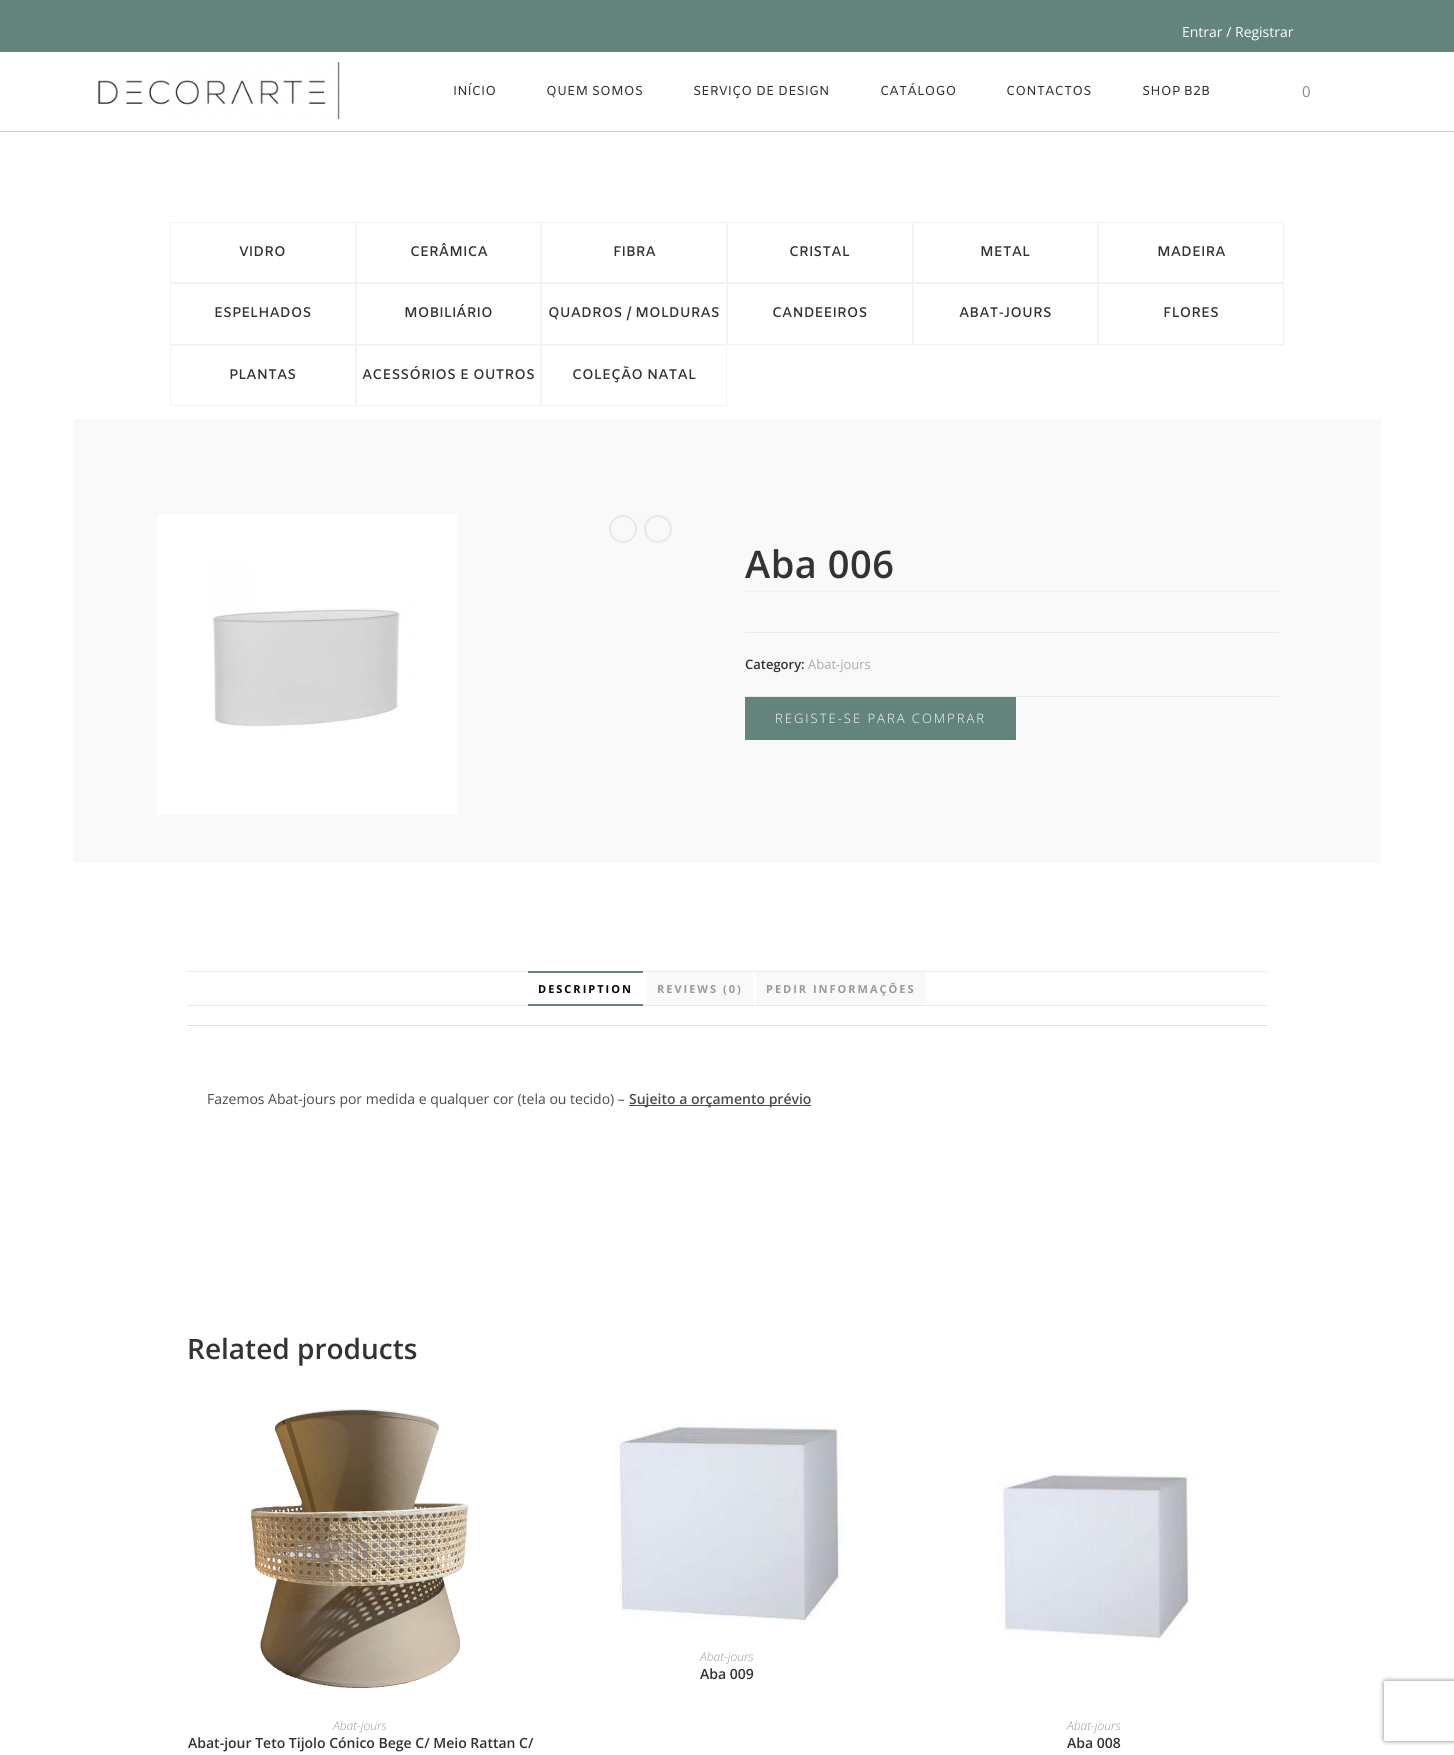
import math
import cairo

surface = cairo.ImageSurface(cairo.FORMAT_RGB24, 1454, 1755)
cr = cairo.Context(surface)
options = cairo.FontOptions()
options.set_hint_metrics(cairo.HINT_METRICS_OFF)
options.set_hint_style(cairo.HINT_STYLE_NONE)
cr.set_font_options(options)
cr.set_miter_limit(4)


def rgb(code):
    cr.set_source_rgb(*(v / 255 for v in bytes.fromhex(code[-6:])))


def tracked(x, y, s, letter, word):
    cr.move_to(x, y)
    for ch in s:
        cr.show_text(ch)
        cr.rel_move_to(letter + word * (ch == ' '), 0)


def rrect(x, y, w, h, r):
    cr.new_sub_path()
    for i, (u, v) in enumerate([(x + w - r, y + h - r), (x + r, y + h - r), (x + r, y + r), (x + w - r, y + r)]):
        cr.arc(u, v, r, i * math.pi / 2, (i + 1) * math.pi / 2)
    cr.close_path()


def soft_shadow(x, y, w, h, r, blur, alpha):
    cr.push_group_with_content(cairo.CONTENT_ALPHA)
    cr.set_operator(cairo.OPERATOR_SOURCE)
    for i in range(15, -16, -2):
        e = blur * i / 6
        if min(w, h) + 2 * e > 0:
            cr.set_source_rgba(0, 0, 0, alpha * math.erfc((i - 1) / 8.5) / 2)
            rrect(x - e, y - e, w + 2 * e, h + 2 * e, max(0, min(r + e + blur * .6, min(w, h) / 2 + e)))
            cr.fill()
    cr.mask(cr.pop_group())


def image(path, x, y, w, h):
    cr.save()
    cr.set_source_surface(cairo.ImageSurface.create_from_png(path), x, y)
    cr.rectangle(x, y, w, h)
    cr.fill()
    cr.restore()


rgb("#ffffff")
cr.paint()
rgb("#63847c")
cr.rectangle(0, 0, 1454, 52)
cr.fill()
rgb("#cccccc")
cr.rectangle(0, 131, 1454, 1)
cr.fill()
image("img/1.png", 97, 62, 243, 57)
cr.rectangle(170.5, 222.5, 185, 60)
rgb("#f3f3f3")
cr.set_line_width(1)
cr.stroke()
cr.rectangle(356.5, 222.5, 184, 60)
cr.stroke()
cr.rectangle(541.5, 222.5, 185, 60)
cr.stroke()
cr.rectangle(727.5, 222.5, 185, 60)
cr.stroke()
cr.rectangle(913.5, 222.5, 184, 60)
cr.stroke()
cr.rectangle(1098.5, 222.5, 185, 60)
cr.stroke()
cr.rectangle(170.5, 283.5, 185, 61)
cr.stroke()
cr.rectangle(356.5, 283.5, 184, 61)
cr.stroke()
cr.rectangle(541.5, 283.5, 185, 61)
cr.stroke()
cr.rectangle(727.5, 283.5, 185, 61)
cr.stroke()
cr.rectangle(913.5, 283.5, 184, 61)
cr.stroke()
cr.rectangle(1098.5, 283.5, 185, 61)
cr.stroke()
cr.rectangle(170.5, 345.5, 185, 60)
cr.stroke()
cr.rectangle(356.5, 345.5, 184, 60)
cr.stroke()
cr.rectangle(541.5, 345.5, 185, 60)
cr.stroke()
rgb("#f9f9f9")
cr.rectangle(73, 419, 1308, 444)
cr.fill()
image("img/2.png", 157, 515, 300, 300)
cr.arc(623, 529, 13, 0, 2 * math.pi)
rgb("#e9e9e9")
cr.set_line_width(2)
cr.stroke()
cr.arc(658, 529, 13, 0, 2 * math.pi)
cr.stroke()
for x, y, w, h, color in [
    (745, 591, 534, 1, "#f1f1f1"),
    (745, 632, 534, 1, "#eaeaea"),
    (745, 696, 534, 1, "#eaeaea"),
    (745, 697, 271, 43, "#63847c"),
    (187, 971, 1080, 1, "#eaeaea"),
    (187, 1005, 1080, 1, "#eaeaea"),
    (528, 971, 115, 2, "#63847c"),
    (528, 1004, 115, 2, "#63847c"),
    (647, 972, 106, 33, "#f9f9f9"),
    (756, 972, 170, 33, "#f9f9f9"),
    (187, 1025, 1080, 1, "#dedede"),
    (629, 1105, 182, 1, "#4a4a4a"),
]:
    rgb(color)
    cr.rectangle(x, y, w, h)
    cr.fill()
image("img/3.png", 618, 1417, 226, 207)
image("img/4.png", 250, 1409, 219, 279)
image("img/5.png", 998, 1472, 201, 169)
cr.save()
cr.set_fill_rule(cairo.FILL_RULE_EVEN_ODD)
cr.new_path()
cr.move_to(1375, 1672)
cr.line_to(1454, 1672)
cr.line_to(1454, 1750)
cr.line_to(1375, 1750)
cr.close_path()
cr.move_to(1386, 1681)
cr.line_to(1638, 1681)
cr.curve_to(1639, 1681, 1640, 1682, 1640, 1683)
cr.line_to(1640, 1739)
cr.curve_to(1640, 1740, 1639, 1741, 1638, 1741)
cr.line_to(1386, 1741)
cr.curve_to(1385, 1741, 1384, 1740, 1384, 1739)
cr.line_to(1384, 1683)
cr.curve_to(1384, 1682, 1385, 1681, 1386, 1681)
cr.close_path()
cr.clip()
rgb("#808080")
soft_shadow(1384, 1681, 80, 60, 2, 2.5, 1)
cr.restore()
cr.select_font_face("Open Sans")
cr.set_font_size(14)
rgb("#ffffff")
cr.move_to(1182, 37)
cr.show_text("Entrar / Registrar")
cr.select_font_face("Amiko")
cr.set_font_size(13)
rgb("#333333")
for x, y, s in [
    (453, 95, "INÍCIO"),
    (546, 95, "QUEM SOMOS"),
    (693, 95, "SERVIÇO DE DESIGN"),
    (880, 95, "CATÁLOGO"),
    (1006, 95, "CONTACTOS"),
    (1142, 95, "SHOP B2B"),
]:
    cr.move_to(x, y)
    cr.show_text(s)
cr.select_font_face("Open Sans")
cr.set_font_size(15)
rgb("#818a91")
cr.move_to(1302, 97)
cr.show_text("0")
cr.select_font_face("Amiko SemiBold")
cr.set_font_size(14)
rgb("#333333")
for x, y, s in [
    (239, 256, "VIDRO"),
    (410, 256, "CERÂMICA"),
    (613, 256, "FIBRA"),
    (789, 256, "CRISTAL"),
    (980, 256, "METAL"),
    (1157, 256, "MADEIRA"),
    (214, 317, "ESPELHADOS"),
    (404, 317, "MOBILIÁRIO"),
    (548, 317, "QUADROS / MOLDURAS"),
    (772, 317, "CANDEEIROS"),
    (959, 317, "ABAT-JOURS"),
    (1163, 317, "FLORES"),
    (229, 379, "PLANTAS"),
    (362, 379, "ACESSÓRIOS E OUTROS"),
    (572, 379, "COLEÇÃO NATAL"),
]:
    cr.move_to(x, y)
    cr.show_text(s)
cr.select_font_face("Open Sans SemiBold")
cr.set_font_size(38)
tracked(745, 578, "Aba 006", 0.5, 0)
cr.set_font_size(13)
cr.move_to(745, 669)
cr.show_text("Category:")
cr.select_font_face("Open Sans")
rgb("#ababab")
cr.move_to(808, 669)
cr.show_text("Abat-jours")
cr.select_font_face("Open Sans Light")
rgb("#ffffff")
tracked(775, 723, "REGISTE-SE PARA COMPRAR", 2, 0)
cr.select_font_face("Open Sans", cairo.FONT_SLANT_NORMAL, cairo.FONT_WEIGHT_BOLD)
cr.set_font_size(11)
rgb("#000000")
tracked(538, 993, "DESCRIPTION", 2, 0)
rgb("#999999")
tracked(657, 993, "REVIEWS (0)", 2, 0)
tracked(766, 993, "PEDIR INFORMAÇÕES", 2, 0)
cr.select_font_face("Open Sans")
cr.set_font_size(14)
rgb("#4a4a4a")
cr.move_to(207, 1104)
cr.show_text("Fazemos Abat-jours por medida e qualquer cor (tela ou tecido) –")
cr.select_font_face("Open Sans SemiBold")
cr.move_to(629, 1104)
cr.show_text("Sujeito a orçamento prévio")
cr.set_font_size(28)
rgb("#333333")
cr.move_to(187, 1359)
cr.show_text("Related products")
cr.select_font_face("Open Sans Light", cairo.FONT_SLANT_ITALIC)
cr.set_font_size(12)
rgb("#999999")
cr.move_to(700, 1661)
cr.show_text("Abat-jours")
cr.select_font_face("Open Sans SemiBold")
cr.set_font_size(14)
rgb("#333333")
cr.move_to(700, 1679)
cr.show_text("Aba 009")
cr.select_font_face("Open Sans Light", cairo.FONT_SLANT_ITALIC)
cr.set_font_size(12)
rgb("#999999")
cr.move_to(333, 1730)
cr.show_text("Abat-jours")
cr.select_font_face("Open Sans SemiBold")
cr.set_font_size(14)
rgb("#333333")
cr.move_to(188, 1748)
cr.show_text("Abat-jour Teto Tijolo Cónico Bege C/ Meio Rattan C/")
cr.select_font_face("Open Sans Light", cairo.FONT_SLANT_ITALIC)
cr.set_font_size(12)
rgb("#999999")
cr.move_to(1067, 1730)
cr.show_text("Abat-jours")
cr.select_font_face("Open Sans SemiBold")
cr.set_font_size(14)
rgb("#333333")
cr.move_to(1067, 1748)
cr.show_text("Aba 008")
surface.write_to_png("page.png")
